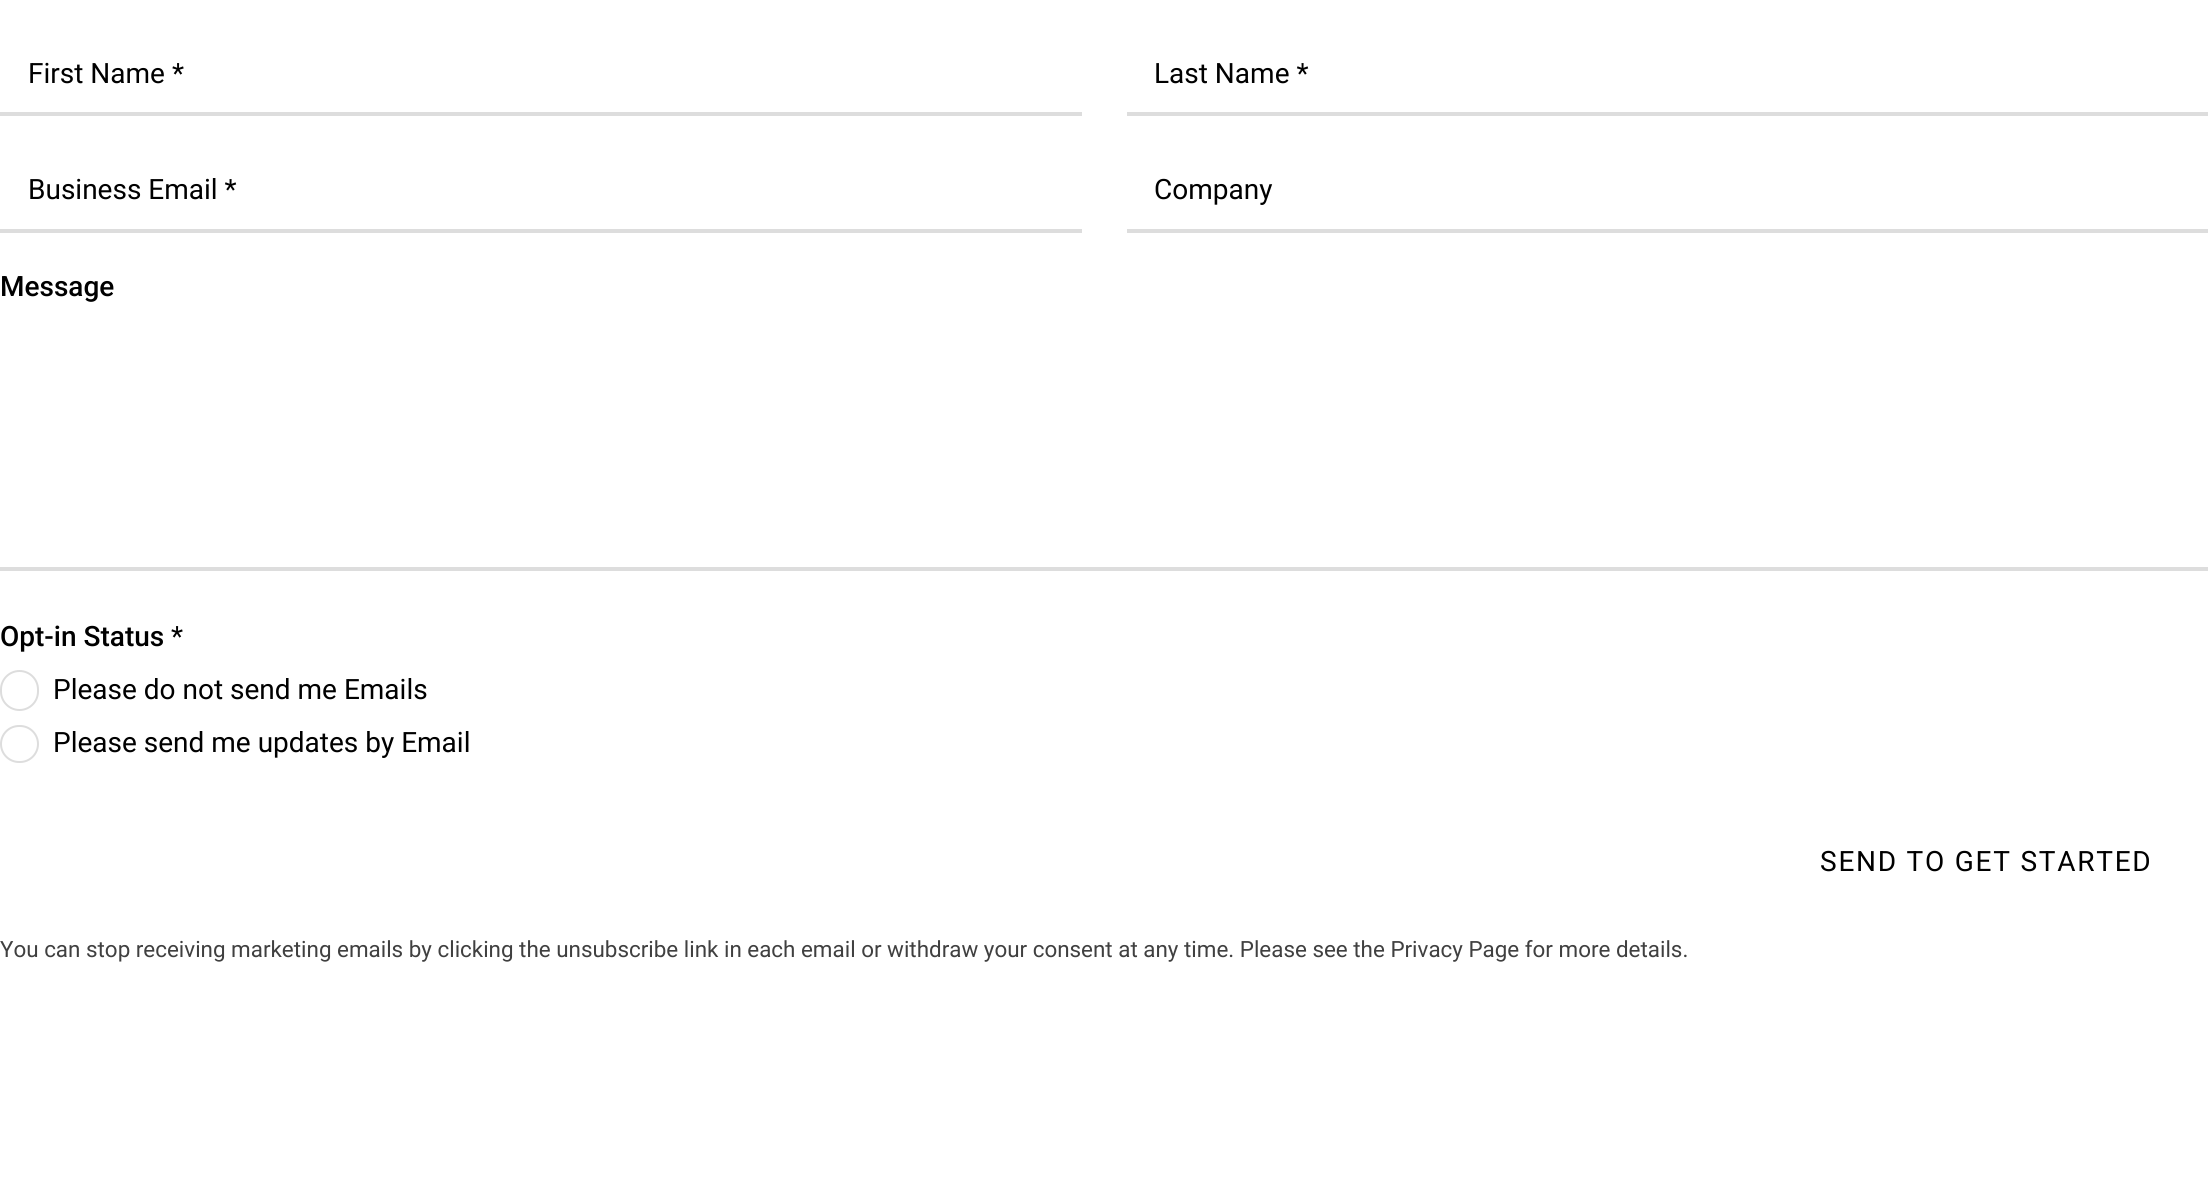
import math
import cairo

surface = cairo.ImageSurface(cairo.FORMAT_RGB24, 2208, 1179)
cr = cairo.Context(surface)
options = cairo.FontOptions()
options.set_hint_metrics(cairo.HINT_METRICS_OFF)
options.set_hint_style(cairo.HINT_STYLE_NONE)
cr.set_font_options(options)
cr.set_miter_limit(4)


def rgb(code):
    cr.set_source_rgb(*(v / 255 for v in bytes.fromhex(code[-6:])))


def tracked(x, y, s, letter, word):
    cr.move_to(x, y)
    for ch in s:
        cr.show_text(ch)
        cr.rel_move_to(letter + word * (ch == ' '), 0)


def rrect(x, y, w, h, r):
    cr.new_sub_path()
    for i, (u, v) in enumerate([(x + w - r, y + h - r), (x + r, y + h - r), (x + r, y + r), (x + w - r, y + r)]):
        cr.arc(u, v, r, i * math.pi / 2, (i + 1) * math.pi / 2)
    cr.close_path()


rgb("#ffffff")
cr.paint()
for x, y, w, h, color in [
    (0, 112, 1082, 4, "#dddddd"),
    (1127, 112, 1081, 4, "#dddddd"),
    (0, 229, 1082, 4, "#dddddd"),
    (1127, 229, 1081, 4, "#dddddd"),
    (0, 567, 2208, 4, "#dddddd"),
]:
    rgb(color)
    cr.rectangle(x, y, w, h)
    cr.fill()
rrect(1, 671, 37, 39, 18.5)
cr.stroke()
rrect(1, 726, 37, 36, 18)
cr.stroke()
cr.select_font_face("Roboto")
cr.set_font_size(28)
rgb("#000000")
for x, y, s in [
    (28, 83, "First Name *"),
    (1154, 83, "Last Name *"),
    (28, 199, "Business Email *"),
    (1154, 199, "Company"),
]:
    cr.move_to(x, y)
    cr.show_text(s)
cr.select_font_face("Roboto Medium")
cr.move_to(0, 296)
cr.show_text("Message")
cr.move_to(0, 646)
cr.show_text("Opt-in Status")
cr.select_font_face("Roboto")
for x, y, s in [
    (171, 646, "*"),
    (53, 699, "Please do not send me Emails"),
    (53, 752, "Please send me updates by Email"),
]:
    cr.move_to(x, y)
    cr.show_text(s)
tracked(1820, 871, "SEND TO GET STARTED", 1.75, 0)
cr.set_font_size(22.4)
rgb("#404040")
cr.move_to(0, 957)
cr.show_text("You can stop receiving marketing emails by clicking the unsubscribe link in each email or withdraw your consent at any time. Please see the Privacy Page for more details.")
surface.write_to_png("page.png")
